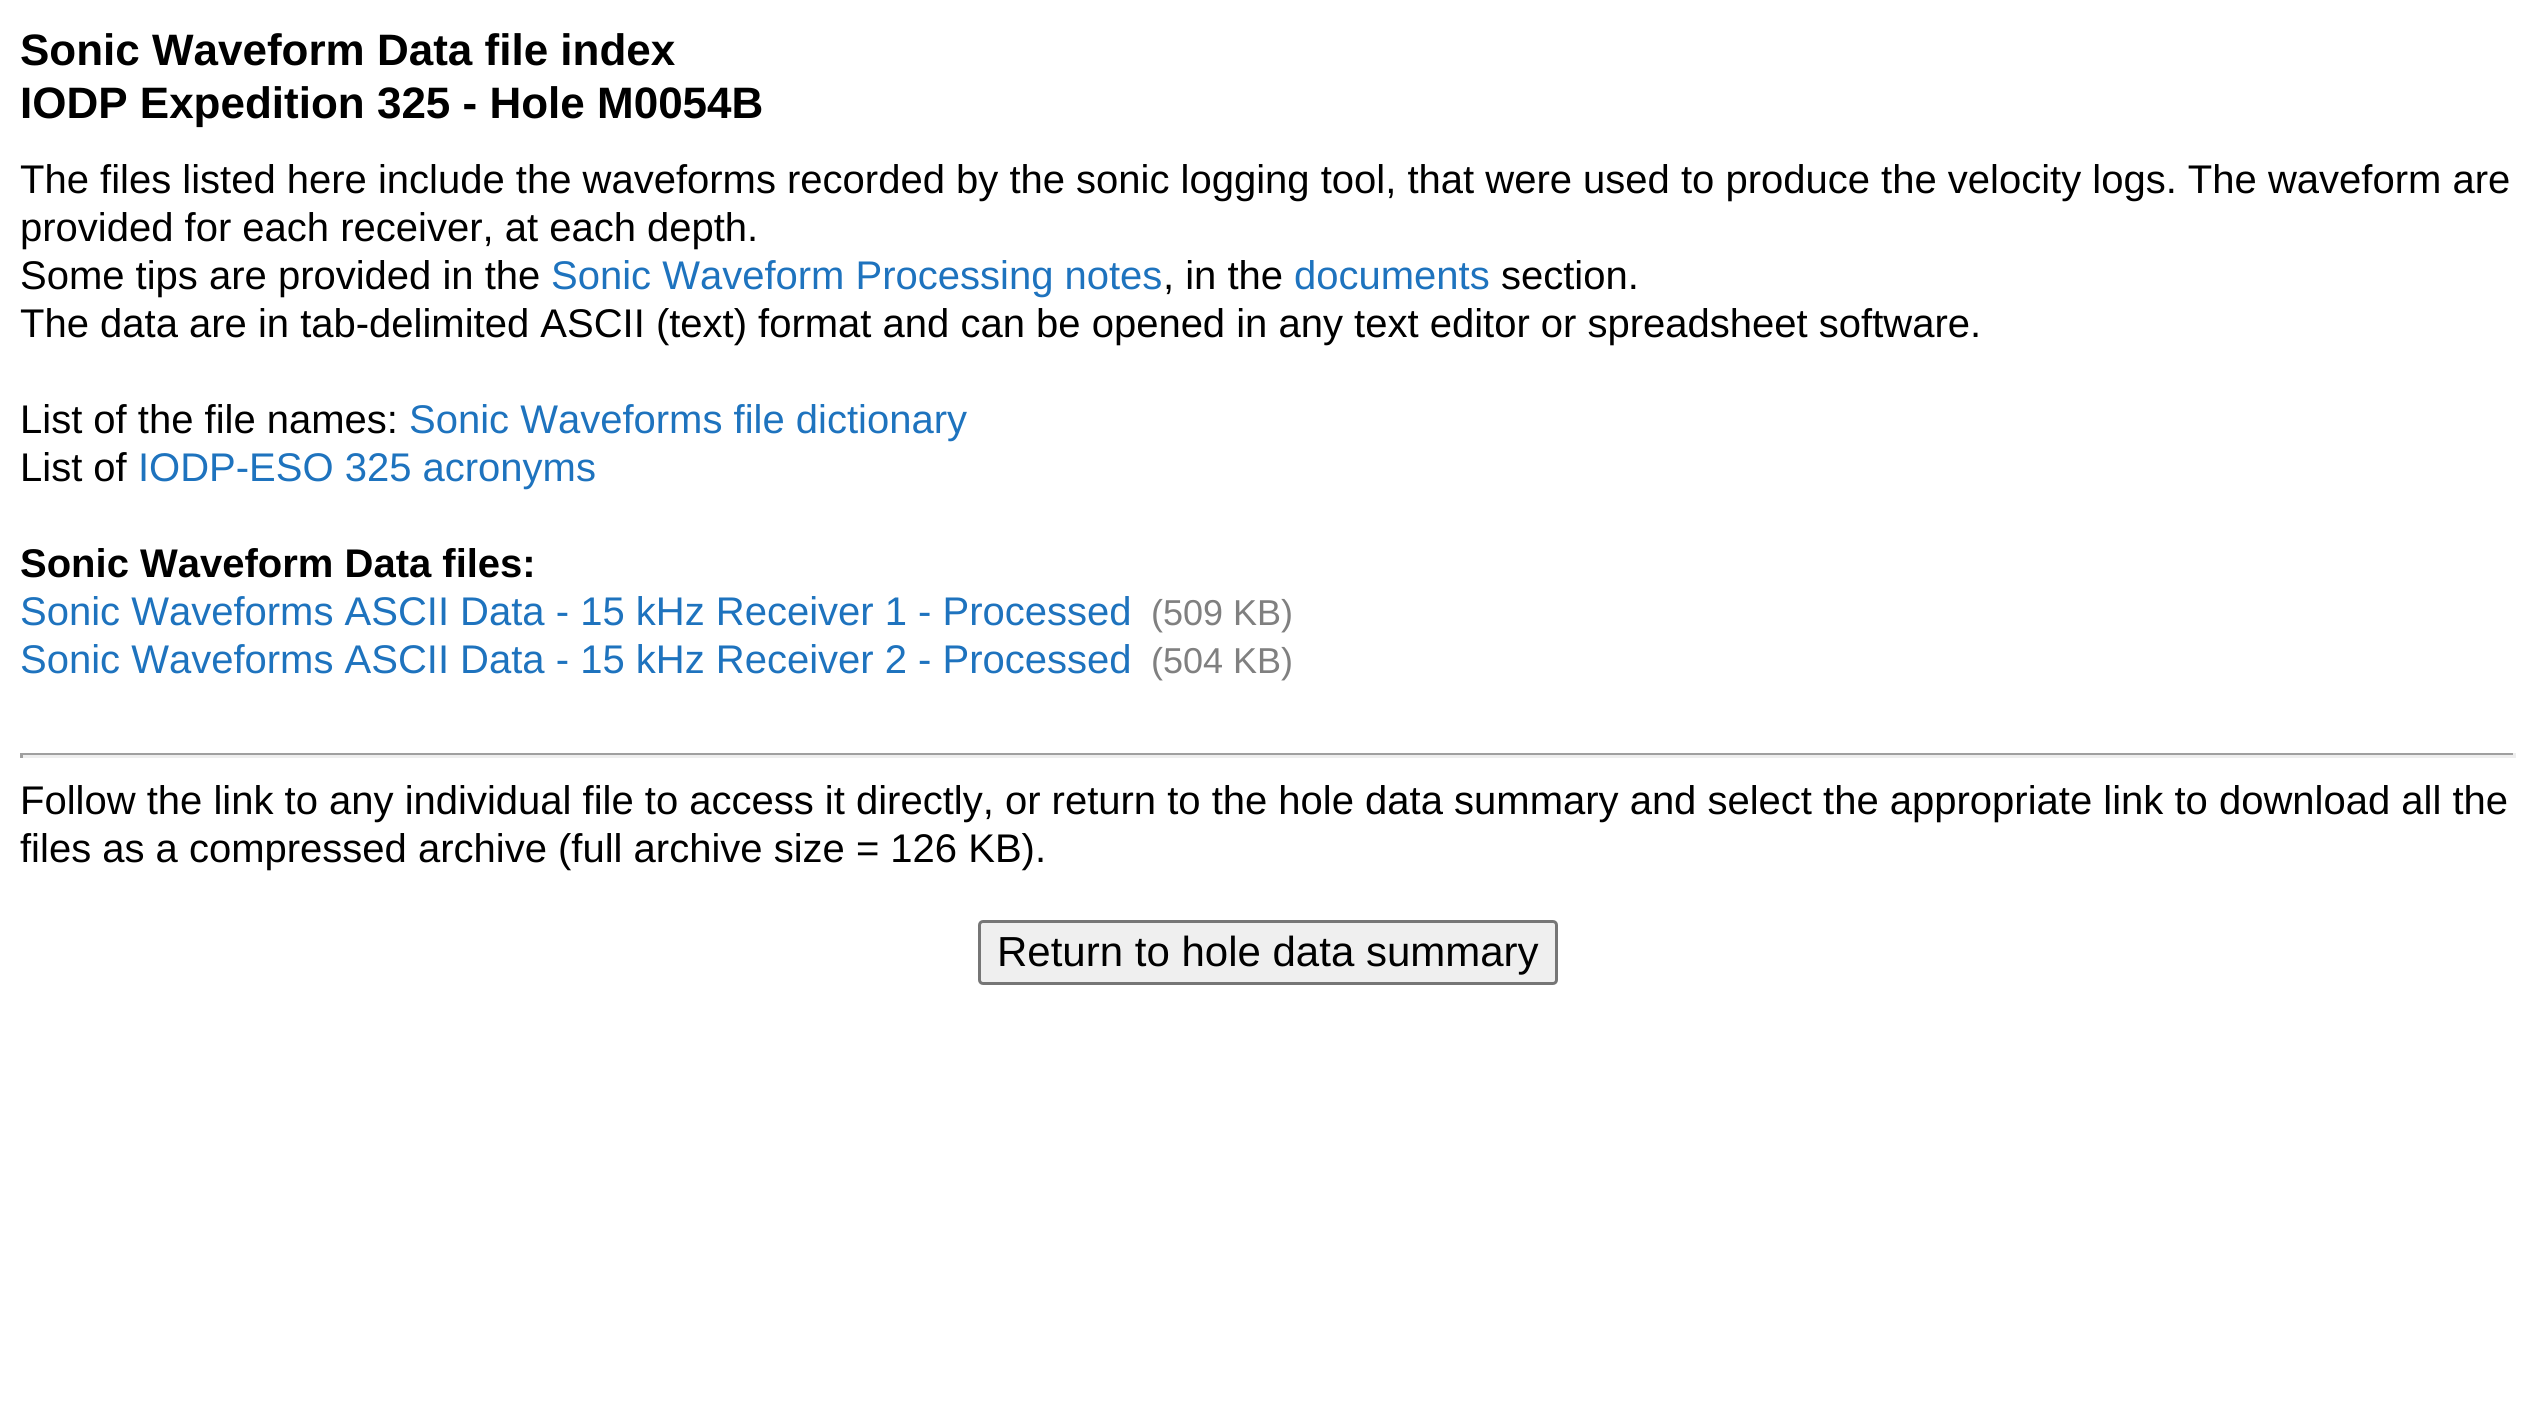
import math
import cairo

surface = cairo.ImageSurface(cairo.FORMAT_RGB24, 2535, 1406)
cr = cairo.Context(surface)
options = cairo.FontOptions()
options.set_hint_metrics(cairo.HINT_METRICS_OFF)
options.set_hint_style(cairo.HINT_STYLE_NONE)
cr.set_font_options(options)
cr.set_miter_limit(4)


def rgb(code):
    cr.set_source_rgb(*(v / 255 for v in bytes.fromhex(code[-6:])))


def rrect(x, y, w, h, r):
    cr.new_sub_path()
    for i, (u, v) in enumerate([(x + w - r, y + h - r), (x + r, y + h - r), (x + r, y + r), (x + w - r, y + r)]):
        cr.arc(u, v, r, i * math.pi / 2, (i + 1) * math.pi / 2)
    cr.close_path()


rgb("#ffffff")
cr.paint()
for x, y, w, h, color in [
    (20, 753, 2495, 2, "#9f9f9f"),
    (2513, 753, 3, 5, "#eeeeee"),
    (20, 755, 2495, 3, "#eeeeee"),
    (20, 753, 3, 5, "#9f9f9f"),
]:
    rgb(color)
    cr.rectangle(x, y, w, h)
    cr.fill()
rgb("#efefef")
rrect(979.5, 921.5, 577, 62, 3.5)
cr.fill_preserve()
rgb("#767676")
cr.set_line_width(3)
cr.stroke()
cr.select_font_face("Liberation Sans", cairo.FONT_SLANT_NORMAL, cairo.FONT_WEIGHT_BOLD)
cr.set_font_size(44)
rgb("#000000")
cr.move_to(20, 65)
cr.show_text("Sonic Waveform Data file index")
cr.move_to(20, 118)
cr.show_text("IODP Expedition 325 - Hole M0054B")
cr.select_font_face("Liberation Sans")
cr.set_font_size(40)
for x, y, s in [
    (20, 193, "The files listed here include the waveforms recorded by the sonic logging tool, that were used to produce the velocity logs. The waveform are"),
    (20, 241, "provided for each receiver, at each depth."),
    (20, 289, "Some tips are provided in the"),
]:
    cr.move_to(x, y)
    cr.show_text(s)
rgb("#1e73be")
cr.move_to(551, 289)
cr.show_text("Sonic Waveform Processing notes")
rgb("#000000")
cr.move_to(1163, 289)
cr.show_text(", in the")
rgb("#1e73be")
cr.move_to(1294, 289)
cr.show_text("documents")
rgb("#000000")
for x, y, s in [
    (1501, 289, "section."),
    (20, 337, "The data are in tab-delimited ASCII (text) format and can be opened in any text editor or spreadsheet software."),
    (20, 433, "List of the file names:"),
]:
    cr.move_to(x, y)
    cr.show_text(s)
rgb("#1e73be")
cr.move_to(409, 433)
cr.show_text("Sonic Waveforms file dictionary")
rgb("#000000")
cr.move_to(20, 481)
cr.show_text("List of")
rgb("#1e73be")
cr.move_to(138, 481)
cr.show_text("IODP-ESO 325 acronyms")
cr.select_font_face("Liberation Sans", cairo.FONT_SLANT_NORMAL, cairo.FONT_WEIGHT_BOLD)
rgb("#000000")
cr.move_to(20, 577)
cr.show_text("Sonic Waveform Data files:")
cr.select_font_face("Liberation Sans")
rgb("#1e73be")
cr.move_to(20, 625)
cr.show_text("Sonic Waveforms ASCII Data - 15 kHz Receiver 1 - Processed")
cr.set_font_size(36)
rgb("#808080")
cr.move_to(1151, 625)
cr.show_text("(509 KB)")
cr.set_font_size(40)
rgb("#1e73be")
cr.move_to(20, 673)
cr.show_text("Sonic Waveforms ASCII Data - 15 kHz Receiver 2 - Processed")
cr.set_font_size(36)
rgb("#808080")
cr.move_to(1151, 673)
cr.show_text("(504 KB)")
cr.set_font_size(40)
rgb("#000000")
cr.move_to(20, 814)
cr.show_text("Follow the link to any individual file to access it directly, or return to the hole data summary and select the appropriate link to download all the")
cr.move_to(20, 862)
cr.show_text("files as a compressed archive (full archive size = 126 KB).")
cr.set_font_size(42)
cr.move_to(997, 966)
cr.show_text("Return to hole data summary")
surface.write_to_png("page.png")
